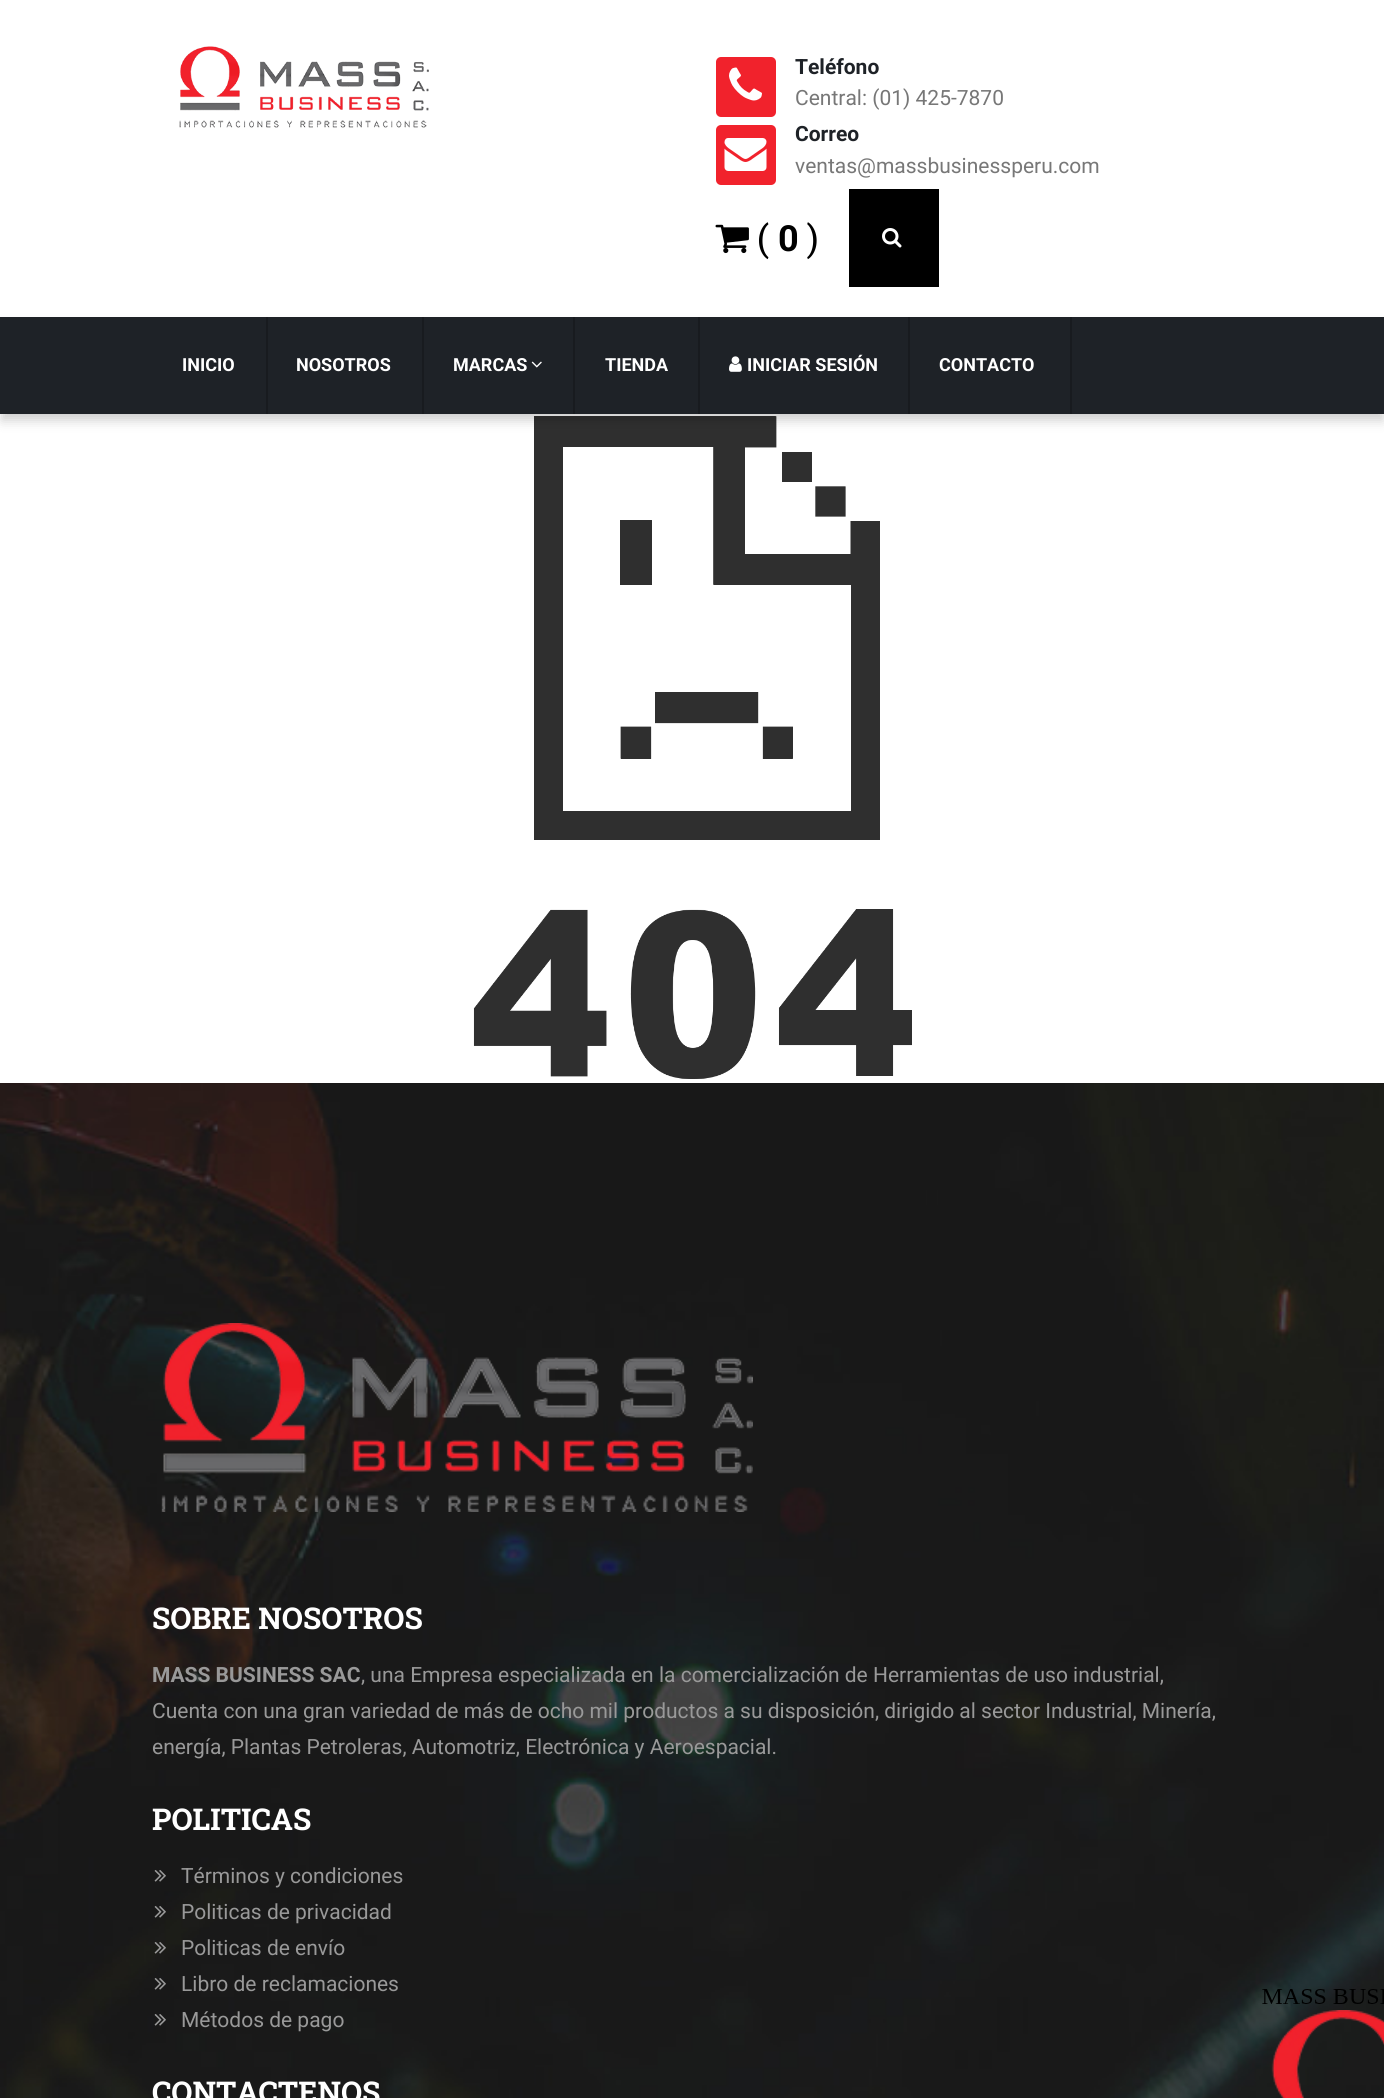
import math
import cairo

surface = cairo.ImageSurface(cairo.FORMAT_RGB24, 1384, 2098)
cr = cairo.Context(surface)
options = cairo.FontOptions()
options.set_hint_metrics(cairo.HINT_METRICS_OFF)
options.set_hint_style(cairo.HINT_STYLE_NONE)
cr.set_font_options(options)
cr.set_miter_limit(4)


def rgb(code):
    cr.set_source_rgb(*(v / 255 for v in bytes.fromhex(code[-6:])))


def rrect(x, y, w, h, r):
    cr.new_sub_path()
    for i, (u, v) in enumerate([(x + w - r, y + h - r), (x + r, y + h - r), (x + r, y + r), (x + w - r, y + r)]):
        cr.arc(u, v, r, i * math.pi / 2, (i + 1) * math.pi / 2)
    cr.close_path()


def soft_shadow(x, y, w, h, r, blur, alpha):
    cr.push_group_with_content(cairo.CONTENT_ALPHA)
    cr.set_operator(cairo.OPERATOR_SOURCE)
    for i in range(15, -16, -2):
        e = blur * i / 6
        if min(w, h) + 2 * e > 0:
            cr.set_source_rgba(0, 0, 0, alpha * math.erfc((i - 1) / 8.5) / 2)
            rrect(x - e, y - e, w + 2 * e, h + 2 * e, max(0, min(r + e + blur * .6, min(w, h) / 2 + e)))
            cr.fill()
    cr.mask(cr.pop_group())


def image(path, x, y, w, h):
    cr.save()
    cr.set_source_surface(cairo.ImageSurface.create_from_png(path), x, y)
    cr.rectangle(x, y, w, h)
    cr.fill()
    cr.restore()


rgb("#ffffff")
cr.paint()
image("img/1.png", 179, 46, 250, 82)
rgb("#f1222c")
rrect(716, 57, 60, 60, 5)
cr.fill()
image("img/2.png", 729, 67, 33, 34)
rrect(716, 125, 60, 60, 5)
cr.fill()
image("img/3.png", 724, 138, 43, 33)
image("img/4.png", 715, 224, 34, 30)
rgb("#000000")
cr.rectangle(849, 189, 90, 98)
cr.fill()
image("img/5.png", 882, 228, 20, 20)
image("img/8.png", 473, 416, 439, 663)
rgb("#000000")
soft_shadow(2, 326, 1381, 94, 0, 6, 0.2)
for x, y, w, h, color in [
    (0, 317, 1384, 97, "#1e2227"),
    (266, 317, 2, 97, "#181b1f"),
    (422, 317, 2, 97, "#181b1f"),
    (573, 317, 2, 97, "#181b1f"),
]:
    rgb(color)
    cr.rectangle(x, y, w, h)
    cr.fill()
image("img/6.png", 531, 361, 11, 7)
cr.rectangle(698, 317, 2, 97)
cr.fill()
cr.rectangle(908, 317, 2, 97)
cr.fill()
image("img/7.png", 729, 356, 13, 16)
cr.rectangle(1070, 317, 2, 97)
cr.fill()
image("img/9.png", 0, 1083, 1384, 1015)
image("img/10.png", 161, 1323, 592, 189)
image("img/11.png", 154, 1870, 12, 12)
image("img/12.png", 154, 1906, 12, 12)
image("img/13.png", 154, 1942, 12, 12)
image("img/14.png", 154, 1978, 12, 12)
image("img/11.png", 154, 2014, 12, 12)
image("img/15.png", 1262, 1989, 122, 109)
cr.select_font_face("Roboto", cairo.FONT_SLANT_NORMAL, cairo.FONT_WEIGHT_BOLD)
cr.set_font_size(21)
rgb("#1e2227")
cr.move_to(795, 74)
cr.show_text("Teléfono")
cr.select_font_face("Roboto")
rgb("#777777")
cr.move_to(795, 105)
cr.show_text("Central: (01) 425-7870")
cr.select_font_face("Roboto", cairo.FONT_SLANT_NORMAL, cairo.FONT_WEIGHT_BOLD)
rgb("#1e2227")
cr.move_to(795, 141)
cr.show_text("Correo")
cr.select_font_face("Roboto")
rgb("#777777")
cr.move_to(795, 173)
cr.show_text("ventas@massbusinessperu.com")
cr.select_font_face("Roboto Slab")
cr.set_font_size(36)
rgb("#000000")
cr.move_to(757, 251)
cr.show_text("(")
cr.select_font_face("Roboto Slab", cairo.FONT_SLANT_NORMAL, cairo.FONT_WEIGHT_BOLD)
cr.move_to(778, 251)
cr.show_text("0")
cr.select_font_face("Roboto Slab")
cr.move_to(807, 251)
cr.show_text(")")
cr.select_font_face("Roboto", cairo.FONT_SLANT_NORMAL, cairo.FONT_WEIGHT_BOLD)
cr.set_font_size(18)
rgb("#ffffff")
for x, y, s in [
    (182, 371, "INICIO"),
    (296, 371, "NOSOTROS"),
    (453, 371, "MARCAS"),
    (605, 371, "TIENDA"),
    (747, 371, "INICIAR SESIÓN"),
    (939, 371, "CONTACTO"),
]:
    cr.move_to(x, y)
    cr.show_text(s)
cr.select_font_face("Roboto Slab", cairo.FONT_SLANT_NORMAL, cairo.FONT_WEIGHT_BOLD)
cr.set_font_size(30)
cr.move_to(152, 1629)
cr.show_text("SOBRE NOSOTROS")
cr.select_font_face("Roboto", cairo.FONT_SLANT_NORMAL, cairo.FONT_WEIGHT_BOLD)
cr.set_font_size(21)
rgb("#999999")
cr.move_to(152, 1682)
cr.show_text("MASS BUSINESS SAC")
cr.select_font_face("Roboto")
for x, y, s in [
    (361, 1682, ", una Empresa especializada en la comercialización de Herramientas de uso industrial,"),
    (152, 1718, "Cuenta con una gran variedad de más de ocho mil productos a su disposición, dirigido al sector Industrial, Minería,"),
    (152, 1754, "energía, Plantas Petroleras, Automotriz, Electrónica y Aeroespacial."),
]:
    cr.move_to(x, y)
    cr.show_text(s)
cr.select_font_face("Roboto Slab", cairo.FONT_SLANT_NORMAL, cairo.FONT_WEIGHT_BOLD)
cr.set_font_size(30)
rgb("#ffffff")
cr.move_to(152, 1830)
cr.show_text("POLITICAS")
cr.select_font_face("Roboto")
cr.set_font_size(21)
rgb("#999999")
for x, y, s in [
    (181, 1883, "Términos y condiciones"),
    (181, 1919, "Politicas de privacidad"),
    (181, 1955, "Politicas de envío"),
    (181, 1991, "Libro de reclamaciones"),
    (181, 2027, "Métodos de pago"),
]:
    cr.move_to(x, y)
    cr.show_text(s)
cr.select_font_face("Roboto Slab", cairo.FONT_SLANT_NORMAL, cairo.FONT_WEIGHT_BOLD)
cr.set_font_size(30)
rgb("#ffffff")
cr.move_to(152, 2103)
cr.show_text("CONTACTENOS")
surface.write_to_png("page.png")
